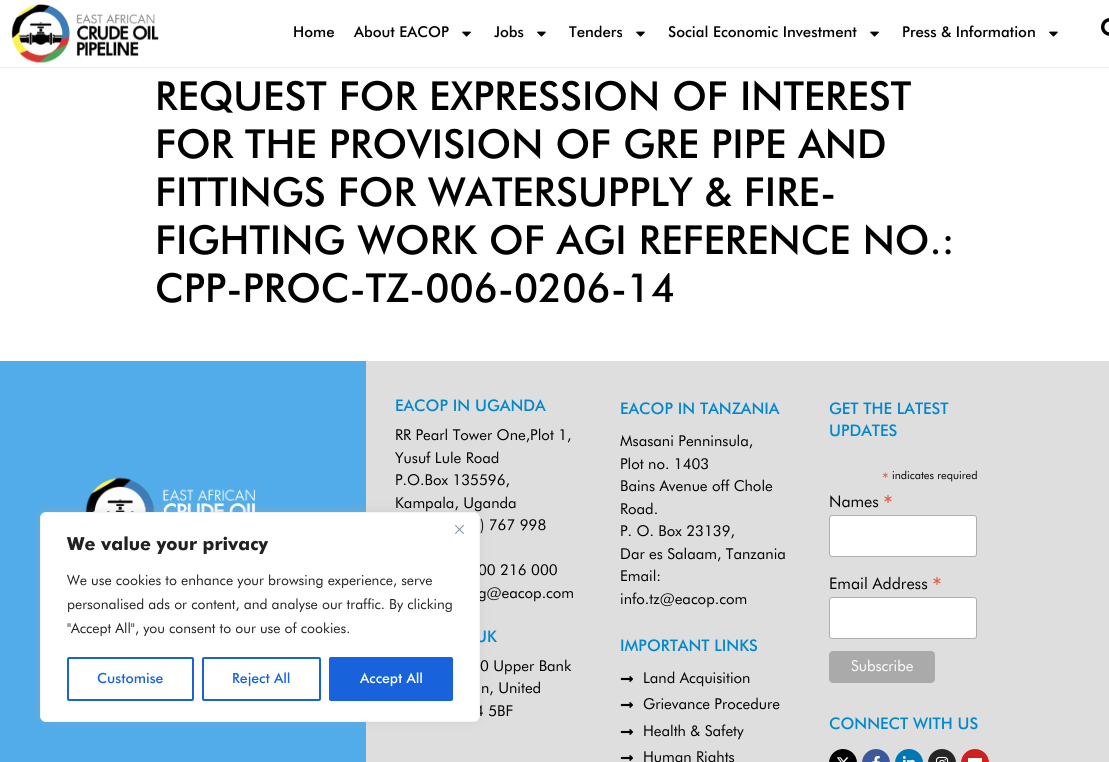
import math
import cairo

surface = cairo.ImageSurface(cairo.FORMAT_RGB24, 1109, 762)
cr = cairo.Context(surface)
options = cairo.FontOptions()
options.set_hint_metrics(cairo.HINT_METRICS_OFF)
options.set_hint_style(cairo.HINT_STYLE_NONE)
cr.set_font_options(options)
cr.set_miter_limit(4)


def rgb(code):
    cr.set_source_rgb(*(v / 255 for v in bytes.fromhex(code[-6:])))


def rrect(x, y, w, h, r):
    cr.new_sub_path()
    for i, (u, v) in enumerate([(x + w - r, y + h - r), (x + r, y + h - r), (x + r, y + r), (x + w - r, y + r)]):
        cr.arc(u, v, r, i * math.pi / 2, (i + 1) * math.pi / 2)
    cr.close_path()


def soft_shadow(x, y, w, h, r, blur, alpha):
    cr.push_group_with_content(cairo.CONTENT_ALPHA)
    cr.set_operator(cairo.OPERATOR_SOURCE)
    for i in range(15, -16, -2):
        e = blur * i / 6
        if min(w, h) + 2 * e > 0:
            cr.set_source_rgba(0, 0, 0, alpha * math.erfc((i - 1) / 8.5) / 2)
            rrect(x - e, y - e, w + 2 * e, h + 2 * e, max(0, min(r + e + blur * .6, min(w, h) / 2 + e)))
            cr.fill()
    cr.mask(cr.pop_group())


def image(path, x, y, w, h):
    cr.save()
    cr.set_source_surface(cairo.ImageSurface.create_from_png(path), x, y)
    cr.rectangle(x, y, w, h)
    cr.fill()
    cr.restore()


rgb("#ffffff")
cr.paint()
cr.save()
cr.rectangle(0, 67, 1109, 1)
cr.clip()
rgb("#000000")
soft_shadow(0, 0, 1109, 67, 0, 1, 0.18)
cr.restore()
image("img/1.png", 11, 4, 148, 59)
image("img/2.png", 462, 31, 9, 6)
image("img/2.png", 537, 31, 9, 6)
image("img/2.png", 636, 31, 9, 6)
image("img/2.png", 870, 31, 9, 6)
image("img/2.png", 1049, 31, 9, 6)
image("img/3.png", 1101, 18, 8, 18)
gradient = cairo.LinearGradient(-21, 675, 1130, 492)
gradient.add_color_stop_rgba(0.57, 0.322, 0.675, 0.914, 1)
gradient.add_color_stop_rgba(0.63, 0.871, 0.871, 0.871, 1)
cr.set_source(gradient)
cr.rectangle(0, 361, 1109, 401)
cr.fill()
image("img/5.png", 85, 477, 171, 35)
rgb("#dedede")
cr.rectangle(366, 361, 369, 401)
cr.fill()
rgb("#acabab")
soft_shadow(40, 511, 440, 210, 6, 5, 0.3)
image("img/6.png", 620, 676, 13, 6)
image("img/6.png", 620, 702, 13, 6)
image("img/6.png", 620, 729, 13, 6)
image("img/6.png", 620, 755, 13, 6)
rgb("#ffffff")
rrect(829.5, 515.5, 147, 41, 2.5)
cr.fill_preserve()
rgb("#abb0b2")
cr.set_line_width(1)
cr.stroke()
rgb("#ffffff")
rrect(829.5, 597.5, 147, 41, 2.5)
cr.fill_preserve()
rgb("#abb0b2")
cr.stroke()
rgb("#aaaaaa")
rrect(829, 651, 106, 32, 4)
cr.fill()
rgb("#000000")
rrect(829, 749, 28, 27, 14)
cr.fill()
image("img/7.png", 836, 757, 13, 5)
rgb("#3b5998")
rrect(862, 749, 28, 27, 14)
cr.fill()
image("img/8.png", 872, 756, 8, 6)
rgb("#0077b5")
rrect(895, 749, 28, 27, 14)
cr.fill()
image("img/9.png", 902, 756, 13, 6)
rgb("#262626")
rrect(928, 749, 28, 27, 14)
cr.fill()
image("img/10.png", 935, 756, 14, 6)
rgb("#cd201f")
rrect(961, 749, 28, 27, 14)
cr.fill()
rgb("#ffffff")
cr.rectangle(968, 758, 14, 4)
cr.fill()
cr.select_font_face("Futura Medium")
cr.set_font_size(15)
rgb("#000000")
for x, y, s in [
    (293, 37, "Home"),
    (354, 37, "About EACOP"),
    (494, 37, "Jobs"),
    (569, 37, "Tenders"),
    (668, 37, "Social Economic Investment"),
    (902, 37, "Press & Information"),
]:
    cr.move_to(x, y)
    cr.show_text(s)
cr.set_font_size(40)
for x, y, s in [
    (155, 110, "REQUEST FOR EXPRESSION OF INTEREST"),
    (155, 158, "FOR THE PROVISION OF GRE PIPE AND"),
    (155, 206, "FITTINGS FOR WATERSUPPLY & FIRE-"),
    (155, 254, "FIGHTING WORK OF AGI REFERENCE NO.:"),
    (155, 302, "CPP-PROC-TZ-006-0206-14"),
]:
    cr.move_to(x, y)
    cr.show_text(s)
cr.set_font_size(16)
rgb("#0088cc")
cr.move_to(395, 411)
cr.show_text("EACOP IN UGANDA")
cr.select_font_face("Futura")
cr.set_font_size(15)
rgb("#000000")
for x, y, s in [
    (395, 440, "RR Pearl Tower One,Plot 1,"),
    (395, 463, "Yusuf Lule Road"),
    (395, 485, "P.O.Box 135596,"),
    (395, 508, "Kampala, Uganda"),
    (480, 530, ") 767 998"),
    (478, 575, "00 216 000"),
    (478, 598, "g@eacop.com"),
]:
    cr.move_to(x, y)
    cr.show_text(s)
cr.select_font_face("Futura Medium")
cr.set_font_size(16)
rgb("#0088cc")
cr.move_to(475, 642)
cr.show_text("UK")
cr.select_font_face("Futura")
cr.set_font_size(15)
rgb("#000000")
for x, y, s in [
    (480, 671, "0 Upper Bank"),
    (481, 693, "n, United"),
    (475, 716, "4 5BF"),
]:
    cr.move_to(x, y)
    cr.show_text(s)
rgb("#ffffff")
rrect(40.5, 512.5, 439, 209, 5.5)
cr.fill_preserve()
rgb("#f4f4f4")
cr.stroke()
image("img/4.png", 455, 525, 9, 9)
rgb("#1863dc")
rrect(330, 658, 122, 42, 1)
cr.fill_preserve()
cr.set_line_width(2)
cr.stroke()
cr.select_font_face("Futura Medium")
cr.set_font_size(14)
rgb("#ffffff")
cr.move_to(360, 683)
cr.show_text("Accept All")
rrect(203, 658, 117, 42, 1)
rgb("#1863dc")
cr.stroke()
cr.move_to(232, 683)
cr.show_text("Reject All")
rrect(68, 658, 125, 42, 1)
cr.stroke()
cr.move_to(97, 683)
cr.show_text("Customise")
cr.select_font_face("Futura")
rgb("#212121")
for x, y, s in [
    (67, 633, "\"Accept All\", you consent to our use of cookies."),
    (67, 609, "personalised ads or content, and analyse our traffic. By clicking"),
    (67, 585, "We use cookies to enhance your browsing experience, serve"),
]:
    cr.move_to(x, y)
    cr.show_text(s)
cr.select_font_face("Futura", cairo.FONT_SLANT_NORMAL, cairo.FONT_WEIGHT_BOLD)
cr.set_font_size(18)
cr.move_to(67, 550)
cr.show_text("We value your privacy")
cr.select_font_face("Futura Medium")
cr.set_font_size(16)
rgb("#0088cc")
cr.move_to(620, 414)
cr.show_text("EACOP IN TANZANIA")
cr.select_font_face("Futura")
cr.set_font_size(15)
rgb("#000000")
for x, y, s in [
    (620, 446, "Msasani Penninsula,"),
    (620, 469, "Plot no. 1403"),
    (620, 491, "Bains Avenue off Chole"),
    (620, 514, "Road."),
    (620, 536, "P. O. Box 23139,"),
    (620, 559, "Dar es Salaam, Tanzania"),
    (620, 581, "Email:"),
    (620, 604, "info.tz@eacop.com"),
]:
    cr.move_to(x, y)
    cr.show_text(s)
cr.select_font_face("Futura Medium")
cr.set_font_size(16)
rgb("#0088cc")
cr.move_to(620, 651)
cr.show_text("IMPORTANT LINKS")
cr.select_font_face("Futura")
cr.set_font_size(15)
rgb("#000000")
for x, y, s in [
    (643, 683, "Land Acquisition"),
    (643, 709, "Grievance Procedure"),
    (643, 736, "Health & Safety"),
    (643, 762, "Human Rights"),
]:
    cr.move_to(x, y)
    cr.show_text(s)
cr.select_font_face("Futura Medium")
cr.set_font_size(16)
rgb("#0088cc")
cr.move_to(829, 414)
cr.show_text("GET THE LATEST")
cr.move_to(829, 436)
cr.show_text("UPDATES")
cr.select_font_face("Futura")
rgb("#e85c41")
cr.move_to(882, 484)
cr.show_text("*")
cr.set_font_size(11)
rgb("#000000")
cr.move_to(892, 479)
cr.show_text("indicates required")
cr.set_font_size(16)
cr.move_to(829, 507)
cr.show_text("Names")
cr.set_font_size(24)
rgb("#e85c41")
cr.move_to(883, 512)
cr.show_text("*")
cr.set_font_size(16)
rgb("#000000")
cr.move_to(829, 589)
cr.show_text("Email Address")
cr.set_font_size(24)
rgb("#e85c41")
cr.move_to(932, 594)
cr.show_text("*")
cr.set_font_size(15)
rgb("#ffffff")
cr.move_to(851, 671)
cr.show_text("Subscribe")
cr.select_font_face("Futura Medium")
cr.set_font_size(16)
rgb("#0088cc")
cr.move_to(829, 729)
cr.show_text("CONNECT WITH US")
surface.write_to_png("page.png")
